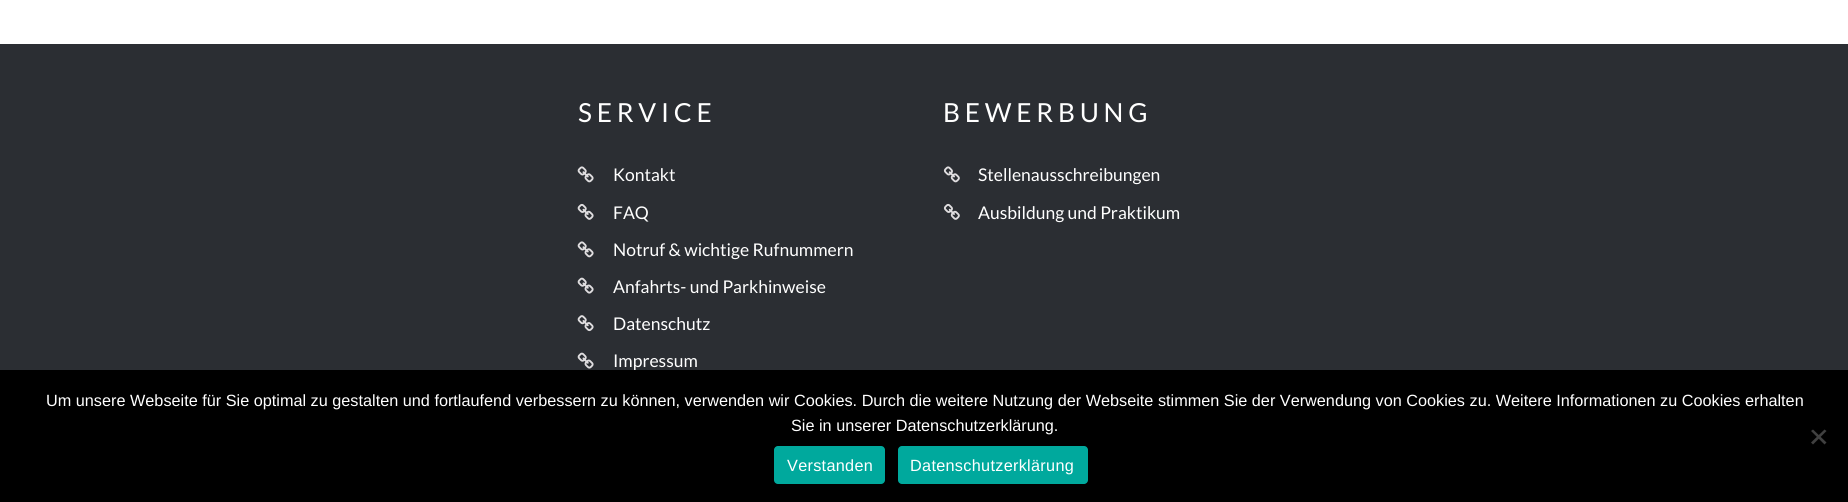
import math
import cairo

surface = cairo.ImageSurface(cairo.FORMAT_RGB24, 1848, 502)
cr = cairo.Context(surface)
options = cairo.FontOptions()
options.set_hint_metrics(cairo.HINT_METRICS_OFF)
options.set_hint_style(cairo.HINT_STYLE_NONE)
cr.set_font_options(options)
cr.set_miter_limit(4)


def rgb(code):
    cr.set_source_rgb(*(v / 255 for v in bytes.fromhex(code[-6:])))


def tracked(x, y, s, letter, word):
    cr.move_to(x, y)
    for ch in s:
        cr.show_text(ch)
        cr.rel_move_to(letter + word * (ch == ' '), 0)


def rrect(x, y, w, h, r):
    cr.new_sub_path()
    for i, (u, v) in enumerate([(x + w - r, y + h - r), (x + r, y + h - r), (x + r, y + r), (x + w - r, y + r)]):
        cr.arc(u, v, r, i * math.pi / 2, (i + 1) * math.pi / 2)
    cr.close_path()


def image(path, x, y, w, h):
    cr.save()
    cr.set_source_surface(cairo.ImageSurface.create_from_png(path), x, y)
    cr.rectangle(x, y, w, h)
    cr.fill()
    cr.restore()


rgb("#ffffff")
cr.paint()
rgb("#2b2e33")
cr.rectangle(0, 44, 1848, 326)
cr.fill()
image("img/1.png", 577, 166, 17, 17)
image("img/2.png", 577, 203, 17, 17)
image("img/1.png", 577, 241, 17, 17)
image("img/3.png", 577, 277, 17, 17)
image("img/4.png", 577, 315, 17, 17)
image("img/3.png", 577, 352, 17, 17)
image("img/5.png", 943, 166, 17, 17)
image("img/6.png", 943, 203, 17, 17)
rgb("#000000")
cr.rectangle(0, 370, 1848, 132)
cr.fill()
rgb("#404040")
cr.new_path()
cr.move_to(1824.5, 429.5)
cr.line_to(1826.5, 431)
cr.line_to(1813, 444.5)
cr.line_to(1811, 442.5)
cr.close_path()
cr.fill()
cr.new_path()
cr.move_to(1811, 431)
cr.line_to(1813, 429.5)
cr.line_to(1826.5, 442.5)
cr.line_to(1824.5, 444.5)
cr.close_path()
cr.fill()
rgb("#00a99d")
rrect(774, 446, 111, 38, 4)
cr.fill()
rrect(898, 446, 190, 38, 4)
cr.fill()
cr.select_font_face("Lato")
cr.set_font_size(26.25)
rgb("#ffffff")
tracked(578, 122, "SERVICE", 4.75, 0)
cr.set_font_size(17.5)
for x, y, s in [
    (613, 181, "Kontakt"),
    (613, 219, "FAQ"),
    (613, 256, "Notruf & wichtige Rufnummern"),
    (613, 293, "Anfahrts- und Parkhinweise"),
    (613, 330, "Datenschutz"),
    (613, 367, "Impressum"),
]:
    cr.move_to(x, y)
    cr.show_text(s)
cr.set_font_size(26.25)
tracked(943, 122, "BEWERBUNG", 4.75, 0)
cr.set_font_size(17.5)
cr.move_to(978, 181)
cr.show_text("Stellenausschreibungen")
cr.move_to(978, 219)
cr.show_text("Ausbildung und Praktikum")
cr.select_font_face("Liberation Sans")
cr.set_font_size(16.25)
cr.move_to(46, 406)
cr.show_text("Um unsere Webseite für Sie optimal zu gestalten und fortlaufend verbessern zu können, verwenden wir Cookies. Durch die weitere Nutzung der Webseite stimmen Sie der Verwendung von Cookies zu. Weitere Informationen zu Cookies erhalten")
cr.move_to(791, 431)
cr.show_text("Sie in unserer Datenschutzerklärung.")
tracked(787, 471, "Verstanden", 0.3, 0)
tracked(910, 471, "Datenschutzerklärung", 0.3, 0)
surface.write_to_png("page.png")
